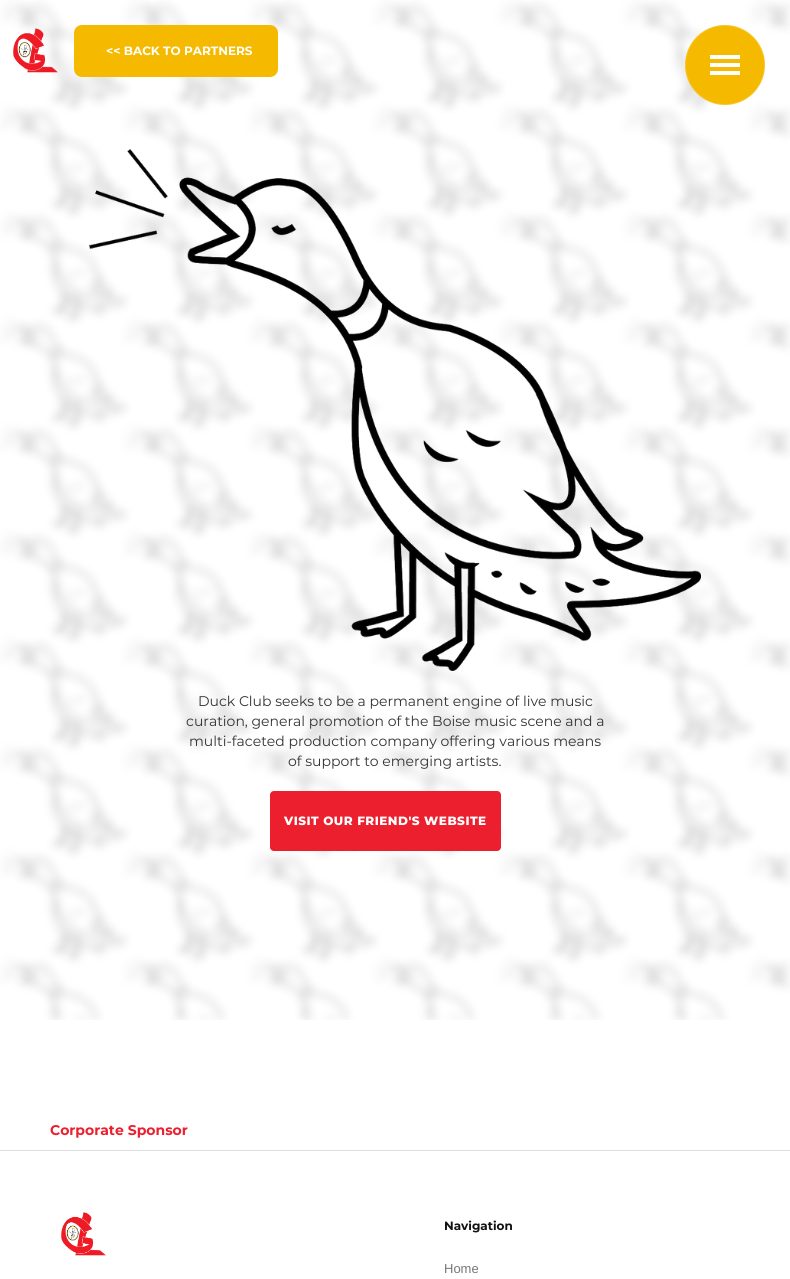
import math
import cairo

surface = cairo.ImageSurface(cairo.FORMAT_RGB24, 790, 1279)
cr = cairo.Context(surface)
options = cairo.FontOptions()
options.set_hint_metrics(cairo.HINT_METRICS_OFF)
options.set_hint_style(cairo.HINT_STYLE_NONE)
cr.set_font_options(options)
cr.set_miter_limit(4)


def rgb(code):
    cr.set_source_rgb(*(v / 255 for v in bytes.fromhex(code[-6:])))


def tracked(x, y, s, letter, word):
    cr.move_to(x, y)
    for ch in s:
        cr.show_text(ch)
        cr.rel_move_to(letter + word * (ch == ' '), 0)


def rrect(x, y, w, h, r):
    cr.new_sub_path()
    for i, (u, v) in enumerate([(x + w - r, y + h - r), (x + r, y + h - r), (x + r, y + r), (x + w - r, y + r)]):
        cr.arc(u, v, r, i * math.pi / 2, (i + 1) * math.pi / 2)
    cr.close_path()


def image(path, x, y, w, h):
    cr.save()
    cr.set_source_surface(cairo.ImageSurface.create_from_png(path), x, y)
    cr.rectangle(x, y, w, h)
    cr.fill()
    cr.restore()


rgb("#ffffff")
cr.paint()
image("img/2.png", 0, 0, 790, 1020)
image("img/1.png", 13, 28, 45, 45)
rgb("#f5ba00")
rrect(74, 25, 204, 52, 8)
cr.fill()
image("img/3.png", 89, 149, 612, 522)
rgb("#ec1f2e")
rrect(270, 791, 231, 60, 4)
cr.fill()
rgb("#dddddd")
cr.rectangle(0, 1150, 790, 1)
cr.fill()
image("img/4.png", 61, 1212, 45, 44)
rgb("#f5ba00")
cr.arc(725, 65, 40, 0, 2 * math.pi)
cr.fill()
cr.arc(725, 65, 39.5, 0, 2 * math.pi)
cr.set_source_rgba(1, 1, 1, 0.15)
cr.set_line_width(1)
cr.stroke()
for x, y, w, h, color in [
    (710, 55, 30, 4, "#ffffff"),
    (710, 63, 30, 4, "#ffffff"),
    (710, 71, 30, 4, "#ffffff"),
]:
    rgb(color)
    cr.rectangle(x, y, w, h)
    cr.fill()
cr.select_font_face("Montserrat", cairo.FONT_SLANT_NORMAL, cairo.FONT_WEIGHT_BOLD)
cr.set_font_size(12)
cr.move_to(106, 55)
cr.show_text("<< BACK TO PARTNERS")
cr.select_font_face("Montserrat")
cr.set_font_size(14)
rgb("#333333")
for x, y, s in [
    (198, 706, "Duck Club seeks to be a permanent engine of live music"),
    (186, 726, "curation, general promotion of the Boise music scene and a"),
    (189, 746, "multi-faceted production company offering various means"),
    (288, 766, "of support to emerging artists."),
]:
    cr.move_to(x, y)
    cr.show_text(s)
cr.select_font_face("Montserrat ExtraBold")
cr.set_font_size(12)
rgb("#ffffff")
tracked(284, 825, "VISIT OUR FRIEND'S WEBSITE", 0.5, 0)
cr.select_font_face("Montserrat", cairo.FONT_SLANT_NORMAL, cairo.FONT_WEIGHT_BOLD)
cr.set_font_size(14)
rgb("#ec1f2e")
cr.move_to(50, 1135)
cr.show_text("Corporate Sponsor")
cr.set_font_size(12)
rgb("#111111")
cr.move_to(444, 1230)
cr.show_text("Navigation")
cr.select_font_face("Liberation Sans")
cr.set_font_size(13)
rgb("#777777")
cr.move_to(444, 1273)
cr.show_text("Home")
surface.write_to_png("page.png")
